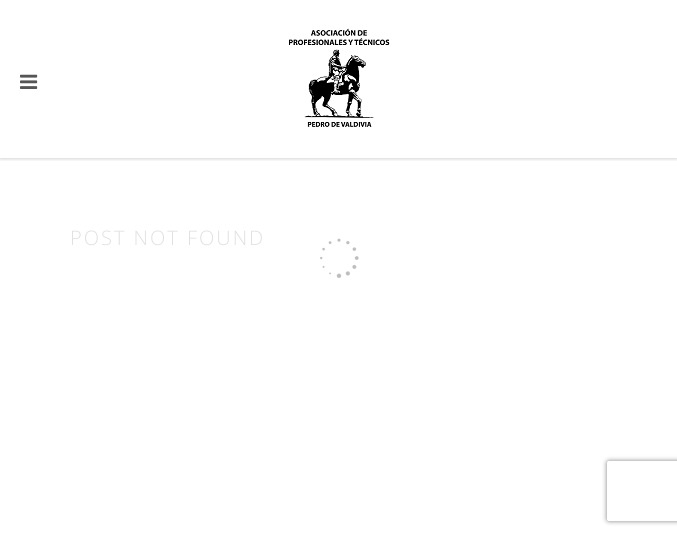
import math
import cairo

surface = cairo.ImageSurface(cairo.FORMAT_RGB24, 677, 535)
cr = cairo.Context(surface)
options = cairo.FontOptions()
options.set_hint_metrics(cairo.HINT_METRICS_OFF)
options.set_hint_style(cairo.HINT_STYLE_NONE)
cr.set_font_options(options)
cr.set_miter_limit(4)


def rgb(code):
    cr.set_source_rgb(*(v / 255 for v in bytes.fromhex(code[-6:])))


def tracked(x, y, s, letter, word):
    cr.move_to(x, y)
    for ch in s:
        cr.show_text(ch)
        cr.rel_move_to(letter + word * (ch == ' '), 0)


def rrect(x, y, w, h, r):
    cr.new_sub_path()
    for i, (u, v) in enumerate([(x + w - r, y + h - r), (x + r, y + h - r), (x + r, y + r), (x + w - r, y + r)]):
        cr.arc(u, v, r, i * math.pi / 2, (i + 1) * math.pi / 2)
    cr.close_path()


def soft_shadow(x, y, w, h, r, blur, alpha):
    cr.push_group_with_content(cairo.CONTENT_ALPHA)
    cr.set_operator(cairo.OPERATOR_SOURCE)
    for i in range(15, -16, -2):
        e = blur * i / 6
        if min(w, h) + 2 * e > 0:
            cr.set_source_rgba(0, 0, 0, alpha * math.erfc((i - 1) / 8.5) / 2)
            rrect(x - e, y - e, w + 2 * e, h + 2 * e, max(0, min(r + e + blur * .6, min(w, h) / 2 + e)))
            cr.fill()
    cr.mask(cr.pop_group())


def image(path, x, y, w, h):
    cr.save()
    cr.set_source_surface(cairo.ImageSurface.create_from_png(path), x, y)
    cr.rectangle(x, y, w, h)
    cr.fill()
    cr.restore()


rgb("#ffffff")
cr.paint()
cr.save()
cr.rectangle(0, 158, 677, 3)
cr.clip()
rgb("#000000")
soft_shadow(0, 0, 677, 158, 0, 2.5, 0.25)
cr.restore()
image("img/1.png", 20, 74, 18, 15)
image("img/2.png", 289, 28, 101, 99)
image("img/3.png", 320, 238, 39, 40)
cr.save()
cr.set_fill_rule(cairo.FILL_RULE_EVEN_ODD)
cr.new_path()
cr.move_to(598, 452)
cr.line_to(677, 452)
cr.line_to(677, 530)
cr.line_to(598, 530)
cr.close_path()
cr.move_to(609, 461)
cr.line_to(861, 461)
cr.curve_to(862, 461, 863, 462, 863, 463)
cr.line_to(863, 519)
cr.curve_to(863, 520, 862, 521, 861, 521)
cr.line_to(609, 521)
cr.curve_to(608, 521, 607, 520, 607, 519)
cr.line_to(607, 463)
cr.curve_to(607, 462, 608, 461, 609, 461)
cr.close_path()
cr.clip()
rgb("#808080")
soft_shadow(607, 461, 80, 60, 2, 2.5, 1)
cr.restore()
cr.select_font_face("Open Sans Light")
cr.set_font_size(20)
rgb("#e1e1e1")
tracked(70, 245, "POST NOT FOUND", 2, 0)
surface.write_to_png("page.png")
